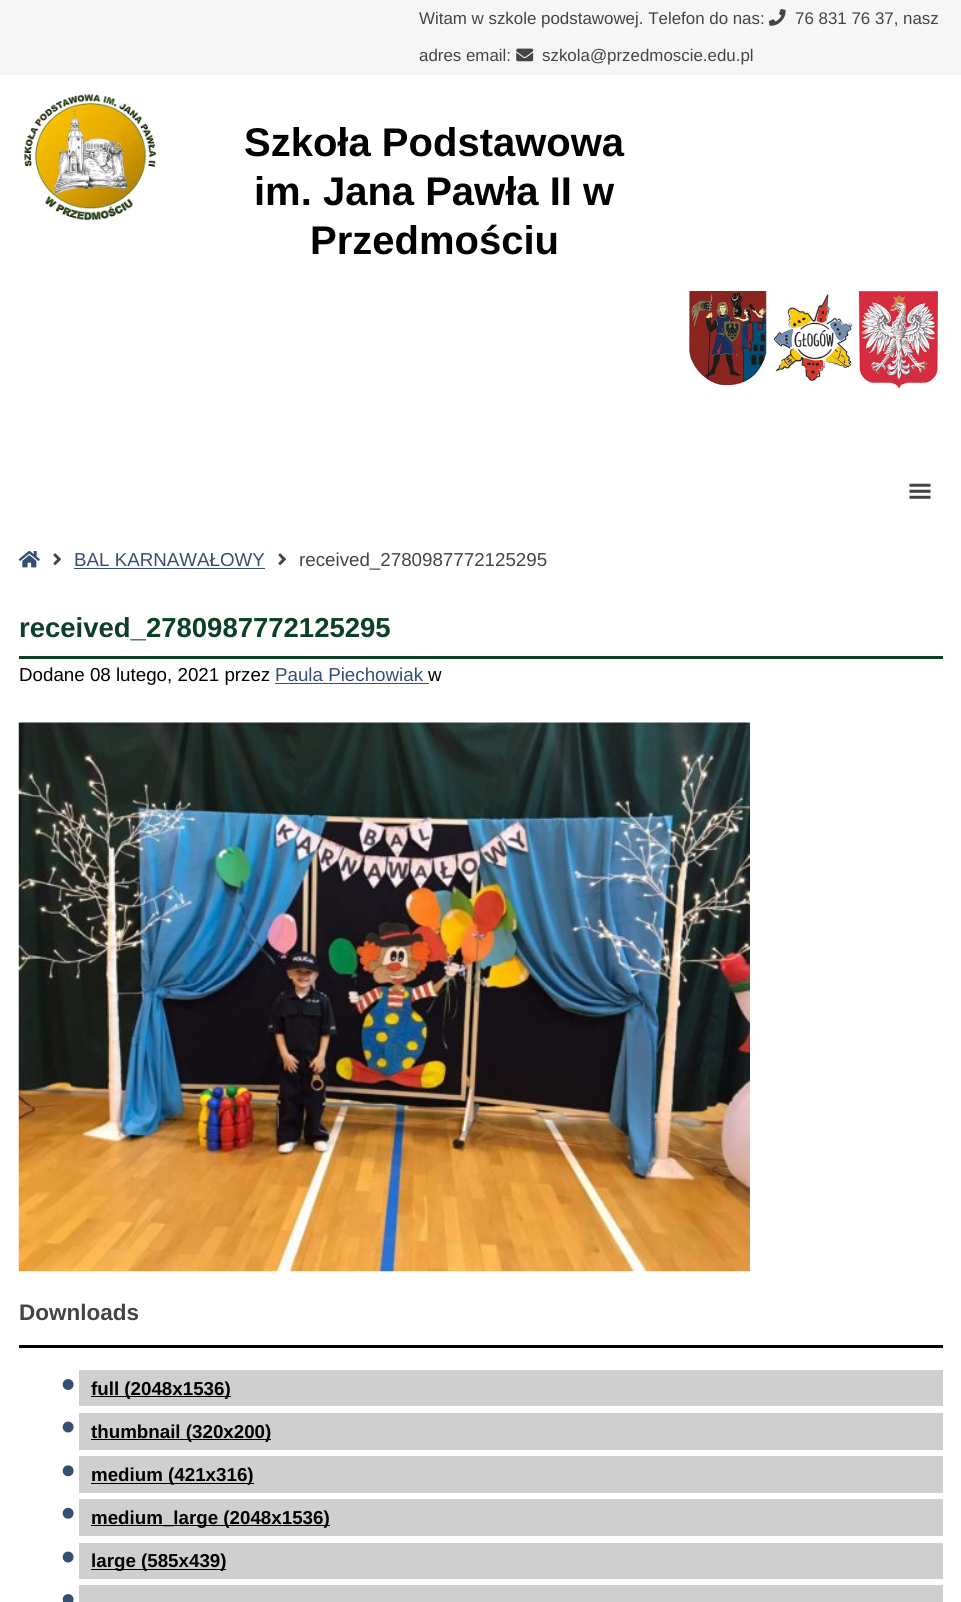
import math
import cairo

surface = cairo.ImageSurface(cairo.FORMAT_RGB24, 961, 1602)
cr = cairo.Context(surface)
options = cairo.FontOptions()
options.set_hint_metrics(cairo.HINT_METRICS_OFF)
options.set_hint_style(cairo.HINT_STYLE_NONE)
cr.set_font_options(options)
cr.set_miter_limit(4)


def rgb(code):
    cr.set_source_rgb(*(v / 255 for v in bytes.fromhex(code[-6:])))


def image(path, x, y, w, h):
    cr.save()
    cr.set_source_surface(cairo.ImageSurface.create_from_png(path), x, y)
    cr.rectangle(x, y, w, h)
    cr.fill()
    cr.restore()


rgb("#ffffff")
cr.paint()
rgb("#f6f6f6")
cr.rectangle(0, 0, 961, 75)
cr.fill()
image("img/1.png", 768, 9, 18, 17)
image("img/2.png", 516, 48, 18, 14)
image("img/3.png", 23, 94, 133, 127)
image("img/4.png", 689, 291, 78, 95)
image("img/5.png", 773, 294, 80, 87)
image("img/6.png", 858, 291, 80, 98)
image("img/7.png", 909, 483, 22, 16)
image("img/8.png", 18, 551, 22, 17)
image("img/9.png", 53, 553, 8, 12)
rgb("#364e72")
cr.rectangle(74, 568, 191, 1)
cr.fill()
image("img/9.png", 278, 553, 8, 12)
rgb("#0b4023")
cr.rectangle(19, 656, 924, 3)
cr.fill()
rgb("#364e72")
cr.rectangle(275, 683, 154, 1)
cr.fill()
image("img/10.png", 18, 722, 732, 550)
rgb("#000000")
cr.rectangle(19, 1345, 924, 3)
cr.fill()
image("img/11.png", 62, 1379, 12, 11)
rgb("#cfcfcf")
cr.rectangle(79, 1370, 864, 36)
cr.fill()
rgb("#000000")
cr.rectangle(91, 1396, 140, 1)
cr.fill()
image("img/12.png", 62, 1421, 12, 12)
rgb("#cfcfcf")
cr.rectangle(79, 1413, 864, 37)
cr.fill()
rgb("#000000")
cr.rectangle(91, 1439, 180, 1)
cr.fill()
image("img/13.png", 62, 1465, 12, 12)
rgb("#cfcfcf")
cr.rectangle(79, 1456, 864, 37)
cr.fill()
rgb("#000000")
cr.rectangle(91, 1483, 163, 1)
cr.fill()
image("img/14.png", 62, 1507, 12, 12)
rgb("#cfcfcf")
cr.rectangle(79, 1499, 864, 37)
cr.fill()
rgb("#000000")
cr.rectangle(91, 1525, 239, 1)
cr.fill()
image("img/12.png", 62, 1551, 12, 12)
rgb("#cfcfcf")
cr.rectangle(79, 1543, 864, 36)
cr.fill()
rgb("#000000")
cr.rectangle(91, 1569, 135, 1)
cr.fill()
image("img/15.png", 62, 1594, 12, 8)
rgb("#cfcfcf")
cr.rectangle(79, 1585, 864, 17)
cr.fill()
cr.select_font_face("Liberation Sans")
cr.set_font_size(16.9)
rgb("#444444")
for x, y, s in [
    (419, 24, "Witam w szkole podstawowej. Telefon do nas:"),
    (795, 24, "76 831 76 37, nasz"),
    (419, 61, "adres email:"),
    (542, 61, "szkola@przedmoscie.edu.pl"),
]:
    cr.move_to(x, y)
    cr.show_text(s)
cr.select_font_face("Liberation Sans", cairo.FONT_SLANT_NORMAL, cairo.FONT_WEIGHT_BOLD)
cr.set_font_size(40)
rgb("#000000")
for x, y, s in [
    (244, 156, "Szkoła Podstawowa"),
    (254, 205, "im. Jana Pawła II w"),
    (310, 254, "Przedmościu"),
]:
    cr.move_to(x, y)
    cr.show_text(s)
cr.select_font_face("Liberation Sans")
cr.set_font_size(18.75)
rgb("#364e72")
cr.move_to(74, 566)
cr.show_text("BAL KARNAWAŁOWY")
rgb("#444444")
cr.move_to(299, 566)
cr.show_text("received_2780987772125295")
cr.select_font_face("Liberation Sans", cairo.FONT_SLANT_NORMAL, cairo.FONT_WEIGHT_BOLD)
cr.set_font_size(27.5)
rgb("#0b4023")
cr.move_to(19, 637)
cr.show_text("received_2780987772125295")
cr.select_font_face("Liberation Sans")
cr.set_font_size(18.75)
rgb("#000000")
cr.move_to(19, 681)
cr.show_text("Dodane 08 lutego, 2021 przez")
rgb("#364e72")
cr.move_to(275, 681)
cr.show_text("Paula Piechowiak")
rgb("#000000")
cr.move_to(428, 681)
cr.show_text("w")
cr.select_font_face("Liberation Sans", cairo.FONT_SLANT_NORMAL, cairo.FONT_WEIGHT_BOLD)
cr.set_font_size(22.5)
rgb("#444444")
cr.move_to(19, 1320)
cr.show_text("Downloads")
cr.set_font_size(18.75)
rgb("#000000")
for x, y, s in [
    (91, 1395, "full (2048x1536)"),
    (91, 1438, "thumbnail (320x200)"),
    (91, 1481, "medium (421x316)"),
    (91, 1524, "medium_large (2048x1536)"),
    (91, 1567, "large (585x439)"),
]:
    cr.move_to(x, y)
    cr.show_text(s)
surface.write_to_png("page.png")
